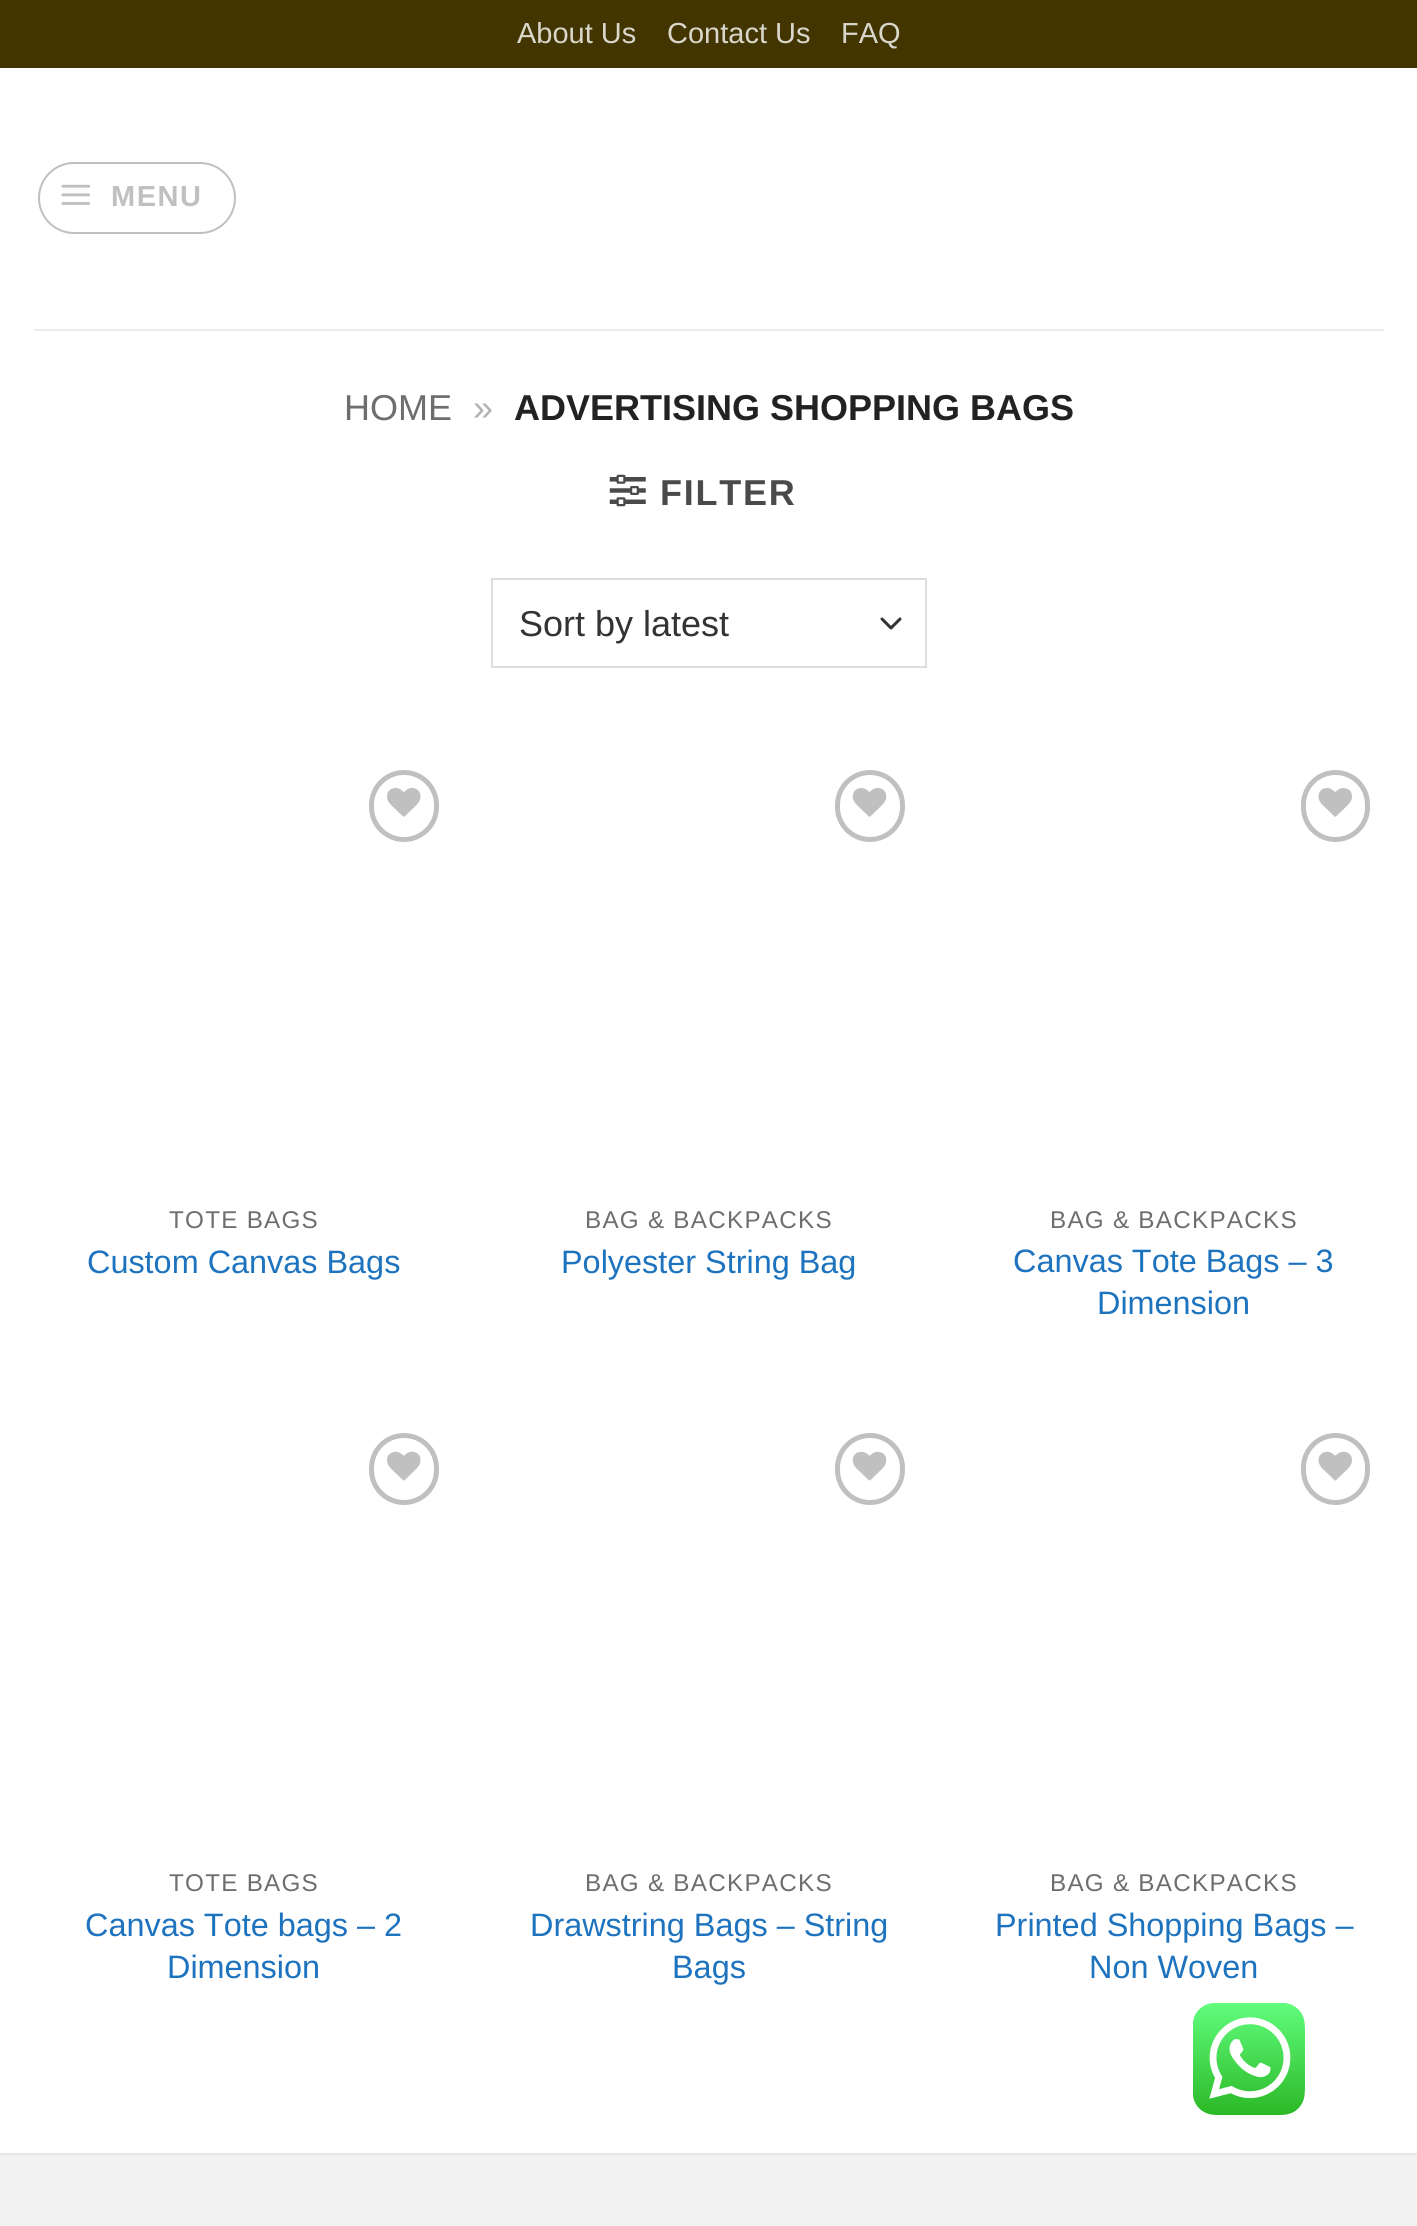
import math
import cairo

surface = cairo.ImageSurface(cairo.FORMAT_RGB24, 1417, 2226)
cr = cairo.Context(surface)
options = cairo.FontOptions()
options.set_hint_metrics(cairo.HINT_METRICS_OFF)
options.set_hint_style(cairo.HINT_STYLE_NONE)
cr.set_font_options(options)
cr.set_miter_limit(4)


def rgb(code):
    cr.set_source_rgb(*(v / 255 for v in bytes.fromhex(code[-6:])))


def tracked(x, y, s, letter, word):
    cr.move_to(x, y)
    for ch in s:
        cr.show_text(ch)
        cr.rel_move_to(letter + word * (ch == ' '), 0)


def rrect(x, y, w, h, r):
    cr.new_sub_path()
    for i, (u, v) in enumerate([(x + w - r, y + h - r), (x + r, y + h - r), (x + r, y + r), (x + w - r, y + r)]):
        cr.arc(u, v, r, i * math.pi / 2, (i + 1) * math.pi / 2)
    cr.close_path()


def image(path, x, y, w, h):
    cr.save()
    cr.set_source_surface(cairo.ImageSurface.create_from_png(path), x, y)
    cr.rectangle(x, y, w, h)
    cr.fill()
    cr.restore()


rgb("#ffffff")
cr.paint()
rgb("#423500")
cr.rectangle(0, 0, 1417, 68)
cr.fill()
rrect(39, 163, 196, 70, 35)
rgb("#c0c0c0")
cr.stroke()
image("img/1.png", 61, 184, 30, 21)
rgb("#ededed")
cr.rectangle(34, 329, 1350, 2)
cr.fill()
image("img/2.png", 609, 474, 37, 33)
cr.new_path()
cr.move_to(882, 619)
cr.line_to(891, 628)
cr.line_to(900, 619)
rgb("#333333")
cr.set_line_width(3)
cr.set_line_cap(cairo.LINE_CAP_ROUND)
cr.set_line_join(cairo.LINE_JOIN_ROUND)
cr.stroke()
cr.rectangle(492, 579, 434, 88)
rgb("#dddddd")
cr.set_line_width(2)
cr.set_line_cap(cairo.LINE_CAP_BUTT)
cr.set_line_join(cairo.LINE_JOIN_MITER)
cr.stroke()
rrect(371.5, 772.5, 65, 67, 32.5)
rgb("#c0c0c0")
cr.set_line_width(5)
cr.stroke()
image("img/3.png", 387, 788, 34, 29)
rrect(837.5, 772.5, 65, 67, 32.5)
cr.stroke()
image("img/4.png", 852, 788, 35, 29)
rrect(1303.5, 772.5, 64, 67, 32)
cr.stroke()
image("img/5.png", 1318, 788, 34, 29)
rrect(371.5, 1435.5, 65, 67, 32.5)
cr.stroke()
image("img/6.png", 387, 1451, 34, 30)
rrect(837.5, 1435.5, 65, 67, 32.5)
cr.stroke()
image("img/7.png", 852, 1451, 35, 30)
rrect(1303.5, 1435.5, 64, 67, 32)
cr.stroke()
image("img/8.png", 1318, 1451, 34, 30)
rgb("#f2f2f2")
cr.rectangle(0, 2155, 1417, 71)
cr.fill()
rgb("#e6e6e6")
cr.rectangle(0, 2153, 1417, 2)
cr.fill()
image("img/9.png", 1193, 2003, 112, 112)
cr.select_font_face("Liberation Sans")
cr.set_font_size(29)
rgb("#d9d7cc")
for x, y, s in [
    (517, 43, "About Us"),
    (667, 43, "Contact Us"),
    (841, 43, "FAQ"),
]:
    cr.move_to(x, y)
    cr.show_text(s)
cr.select_font_face("Liberation Sans", cairo.FONT_SLANT_NORMAL, cairo.FONT_WEIGHT_BOLD)
rgb("#c0c0c0")
tracked(111, 206, "MENU", 1.5, 0)
cr.select_font_face("Liberation Sans")
cr.set_font_size(36)
rgb("#6e6e6e")
cr.move_to(344, 420)
cr.show_text("HOME")
rgb("#b2b2b2")
cr.move_to(473, 420)
cr.show_text("»")
cr.select_font_face("Liberation Sans", cairo.FONT_SLANT_NORMAL, cairo.FONT_WEIGHT_BOLD)
rgb("#222222")
cr.move_to(514, 420)
cr.show_text("ADVERTISING SHOPPING BAGS")
rgb("#4a4a4a")
tracked(660, 505, "FILTER", 1.75, 0)
cr.select_font_face("Liberation Sans")
rgb("#333333")
cr.move_to(519, 636)
cr.show_text("Sort by latest")
cr.set_font_size(24.25)
rgb("#6e6e6e")
tracked(169, 1228, "TOTE BAGS", 1.25, 0)
cr.set_font_size(32.4)
rgb("#1e73be")
cr.move_to(87, 1273)
cr.show_text("Custom Canvas Bags")
cr.set_font_size(24.25)
rgb("#6e6e6e")
tracked(585, 1228, "BAG & BACKPACKS", 1.25, 0)
cr.set_font_size(32.4)
rgb("#1e73be")
cr.move_to(561, 1273)
cr.show_text("Polyester String Bag")
cr.set_font_size(24.25)
rgb("#6e6e6e")
tracked(1050, 1228, "BAG & BACKPACKS", 1.25, 0)
cr.set_font_size(32.4)
rgb("#1e73be")
cr.move_to(1013, 1272)
cr.show_text("Canvas Tote Bags – 3")
cr.move_to(1097, 1314)
cr.show_text("Dimension")
cr.set_font_size(24.25)
rgb("#6e6e6e")
tracked(169, 1891, "TOTE BAGS", 1.25, 0)
cr.set_font_size(32.4)
rgb("#1e73be")
cr.move_to(85, 1936)
cr.show_text("Canvas Tote bags – 2")
cr.move_to(167, 1978)
cr.show_text("Dimension")
cr.set_font_size(24.25)
rgb("#6e6e6e")
tracked(585, 1891, "BAG & BACKPACKS", 1.25, 0)
cr.set_font_size(32.4)
rgb("#1e73be")
cr.move_to(530, 1936)
cr.show_text("Drawstring Bags – String")
cr.move_to(672, 1978)
cr.show_text("Bags")
cr.set_font_size(24.25)
rgb("#6e6e6e")
tracked(1050, 1891, "BAG & BACKPACKS", 1.25, 0)
cr.set_font_size(32.4)
rgb("#1e73be")
cr.move_to(995, 1936)
cr.show_text("Printed Shopping Bags –")
cr.move_to(1089, 1978)
cr.show_text("Non Woven")
surface.write_to_png("page.png")
